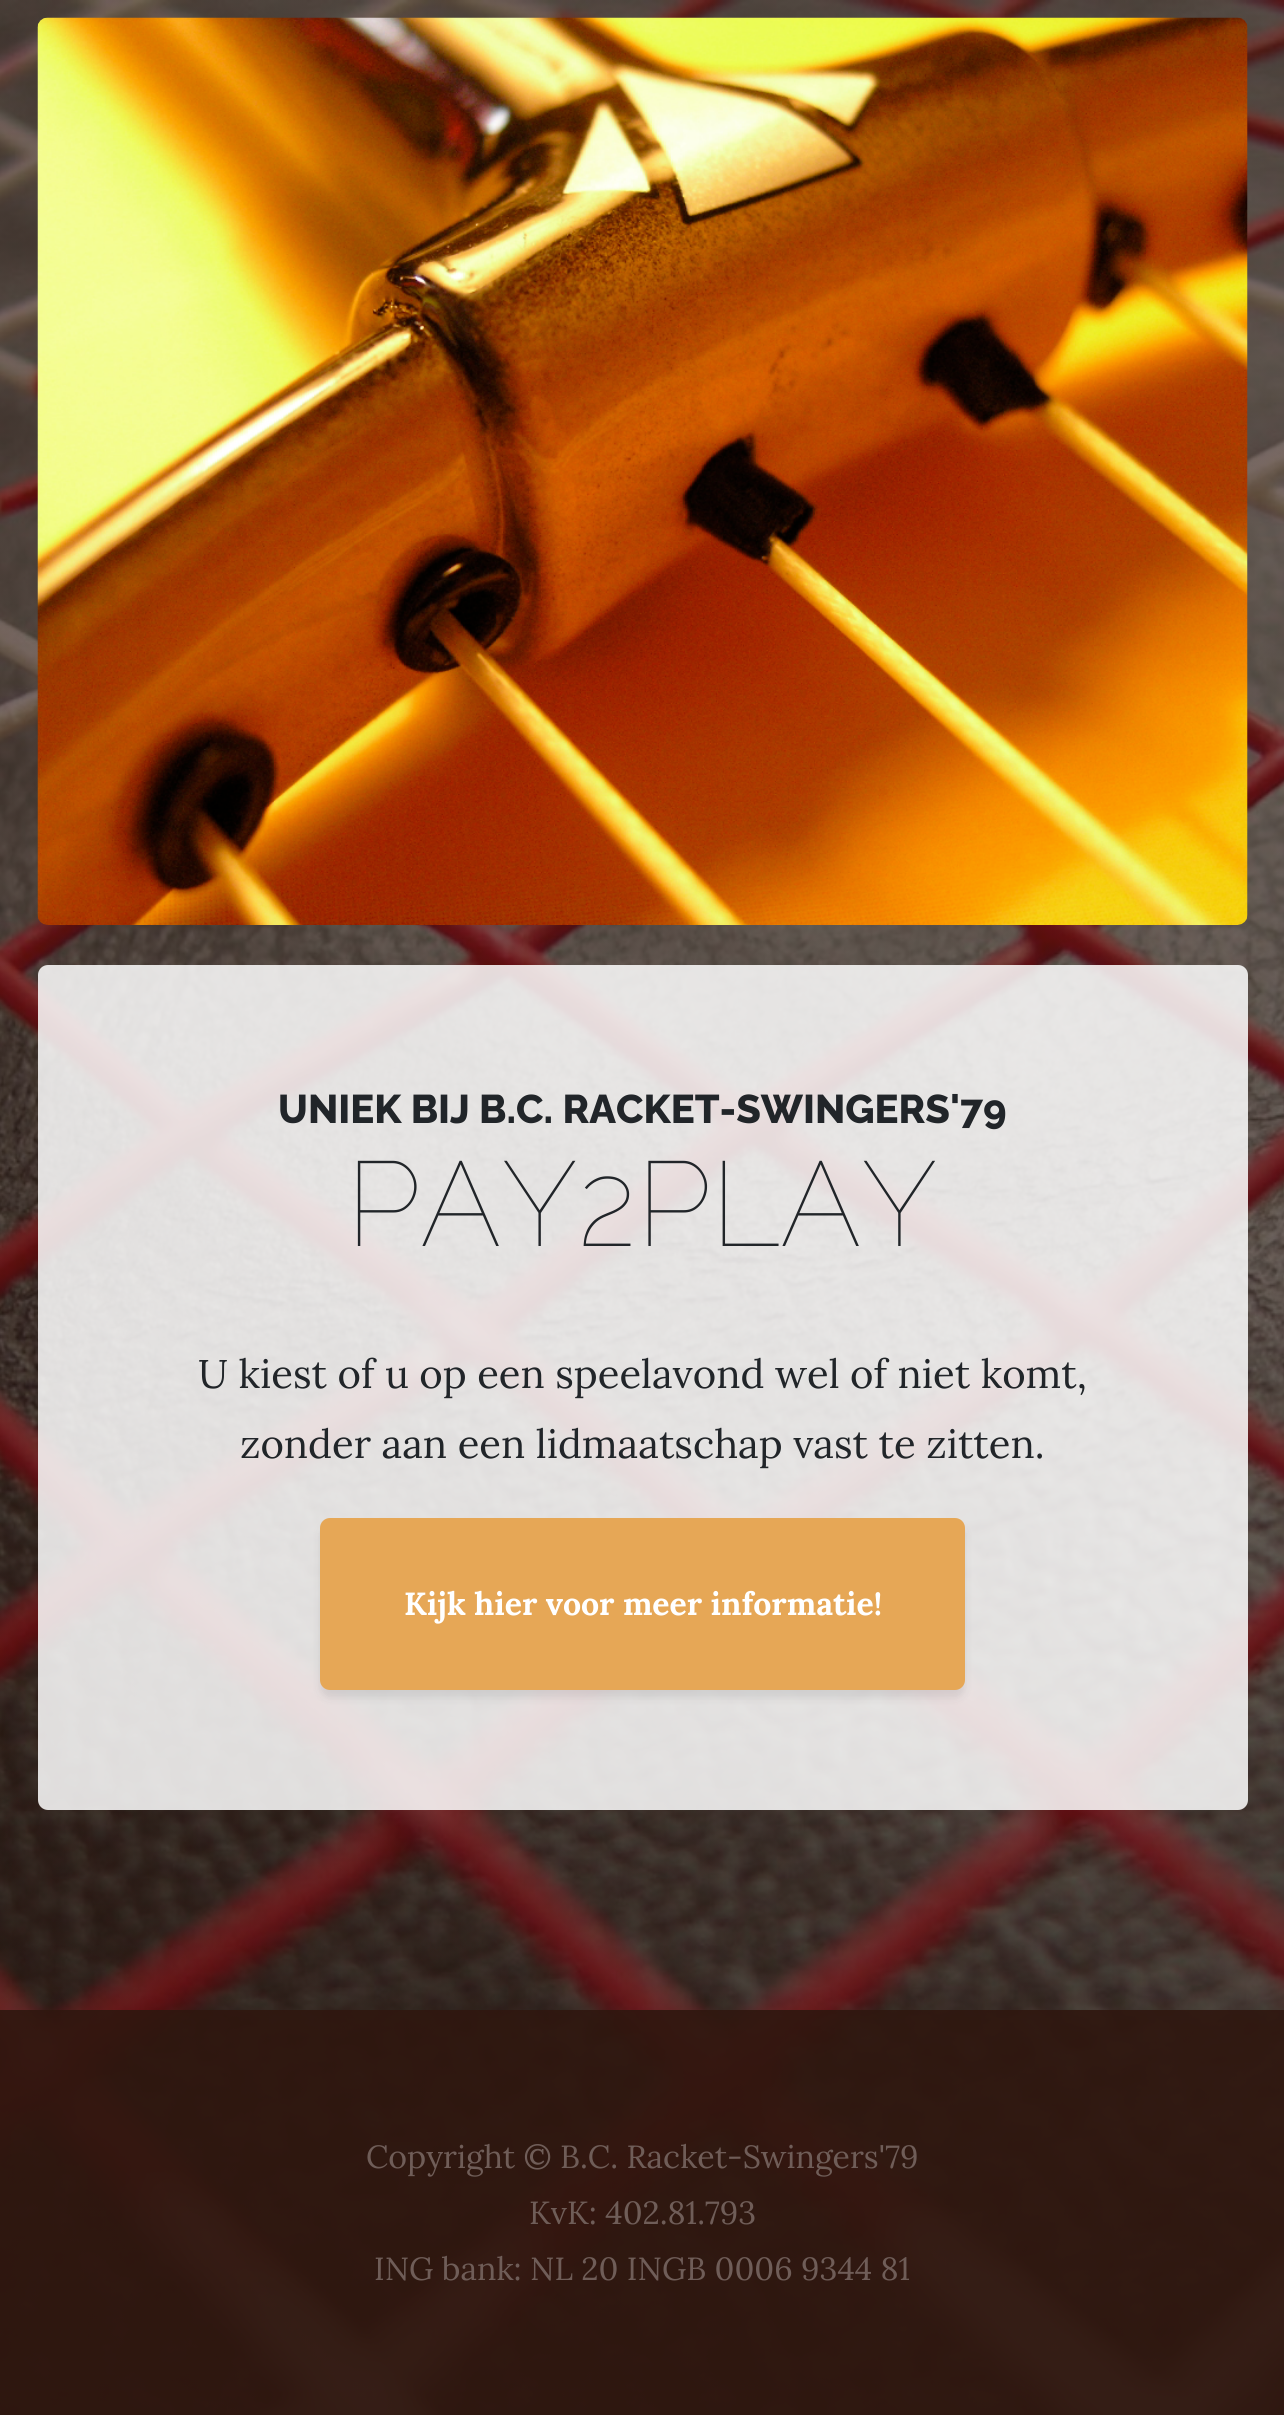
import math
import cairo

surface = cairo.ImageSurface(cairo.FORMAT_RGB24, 1284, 2415)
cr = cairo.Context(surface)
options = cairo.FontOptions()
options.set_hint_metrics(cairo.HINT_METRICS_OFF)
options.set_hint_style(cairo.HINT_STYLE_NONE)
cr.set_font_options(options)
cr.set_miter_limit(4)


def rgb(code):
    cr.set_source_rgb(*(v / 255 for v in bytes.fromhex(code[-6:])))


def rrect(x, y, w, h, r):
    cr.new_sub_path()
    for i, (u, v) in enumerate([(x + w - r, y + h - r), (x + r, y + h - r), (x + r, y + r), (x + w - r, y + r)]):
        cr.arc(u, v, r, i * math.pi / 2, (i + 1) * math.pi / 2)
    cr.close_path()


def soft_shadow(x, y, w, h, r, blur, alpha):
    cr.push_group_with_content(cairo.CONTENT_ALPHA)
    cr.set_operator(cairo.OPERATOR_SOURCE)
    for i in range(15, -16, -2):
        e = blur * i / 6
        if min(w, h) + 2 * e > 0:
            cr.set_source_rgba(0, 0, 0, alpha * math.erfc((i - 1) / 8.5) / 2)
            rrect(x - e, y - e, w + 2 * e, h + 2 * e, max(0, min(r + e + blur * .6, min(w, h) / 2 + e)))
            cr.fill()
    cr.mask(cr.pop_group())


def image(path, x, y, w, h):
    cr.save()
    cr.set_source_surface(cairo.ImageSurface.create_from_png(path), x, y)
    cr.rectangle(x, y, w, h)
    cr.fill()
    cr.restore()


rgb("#ffffff")
cr.paint()
image("img/1.png", 0, 0, 1284, 2415)
image("img/2.png", 37, 17, 1211, 908)
cr.set_source_rgba(1, 1, 1, 0.85)
rrect(38, 965, 1210, 845, 10)
cr.fill()
rgb("#212529")
soft_shadow(320, 1525, 645, 173, 10, 4, 0.1)
rgb("#e6a756")
rrect(321.5, 1519.5, 642, 169, 8.5)
cr.fill_preserve()
cr.set_line_width(3)
cr.stroke()
cr.set_source_rgba(0.184, 0.09, 0.059, 0.9)
cr.rectangle(0, 2010, 1284, 405)
cr.fill()
cr.select_font_face("Raleway ExtraBold")
cr.set_font_size(40)
rgb("#212529")
cr.move_to(278, 1123)
cr.show_text("UNIEK BIJ B.C. RACKET-SWINGERS'79")
cr.select_font_face("Raleway Thin")
cr.set_font_size(120)
cr.move_to(346, 1246)
cr.show_text("PAY2PLAY")
cr.select_font_face("Lora")
cr.set_font_size(40)
cr.move_to(198, 1388)
cr.show_text("U kiest of u op een speelavond wel of niet komt,")
cr.move_to(240, 1458)
cr.show_text("zonder aan een lidmaatschap vast te zitten.")
cr.select_font_face("Lora", cairo.FONT_SLANT_NORMAL, cairo.FONT_WEIGHT_BOLD)
cr.set_font_size(32)
rgb("#ffffff")
cr.move_to(404, 1615)
cr.show_text("Kijk hier voor meer informatie!")
cr.select_font_face("Lora")
rgb("#6f5d58")
for x, y, s in [
    (366, 2168, "Copyright © B.C. Racket-Swingers'79"),
    (529, 2224, "KvK: 402.81.793"),
    (374, 2280, "ING bank: NL 20 INGB 0006 9344 81"),
]:
    cr.move_to(x, y)
    cr.show_text(s)
surface.write_to_png("page.png")
